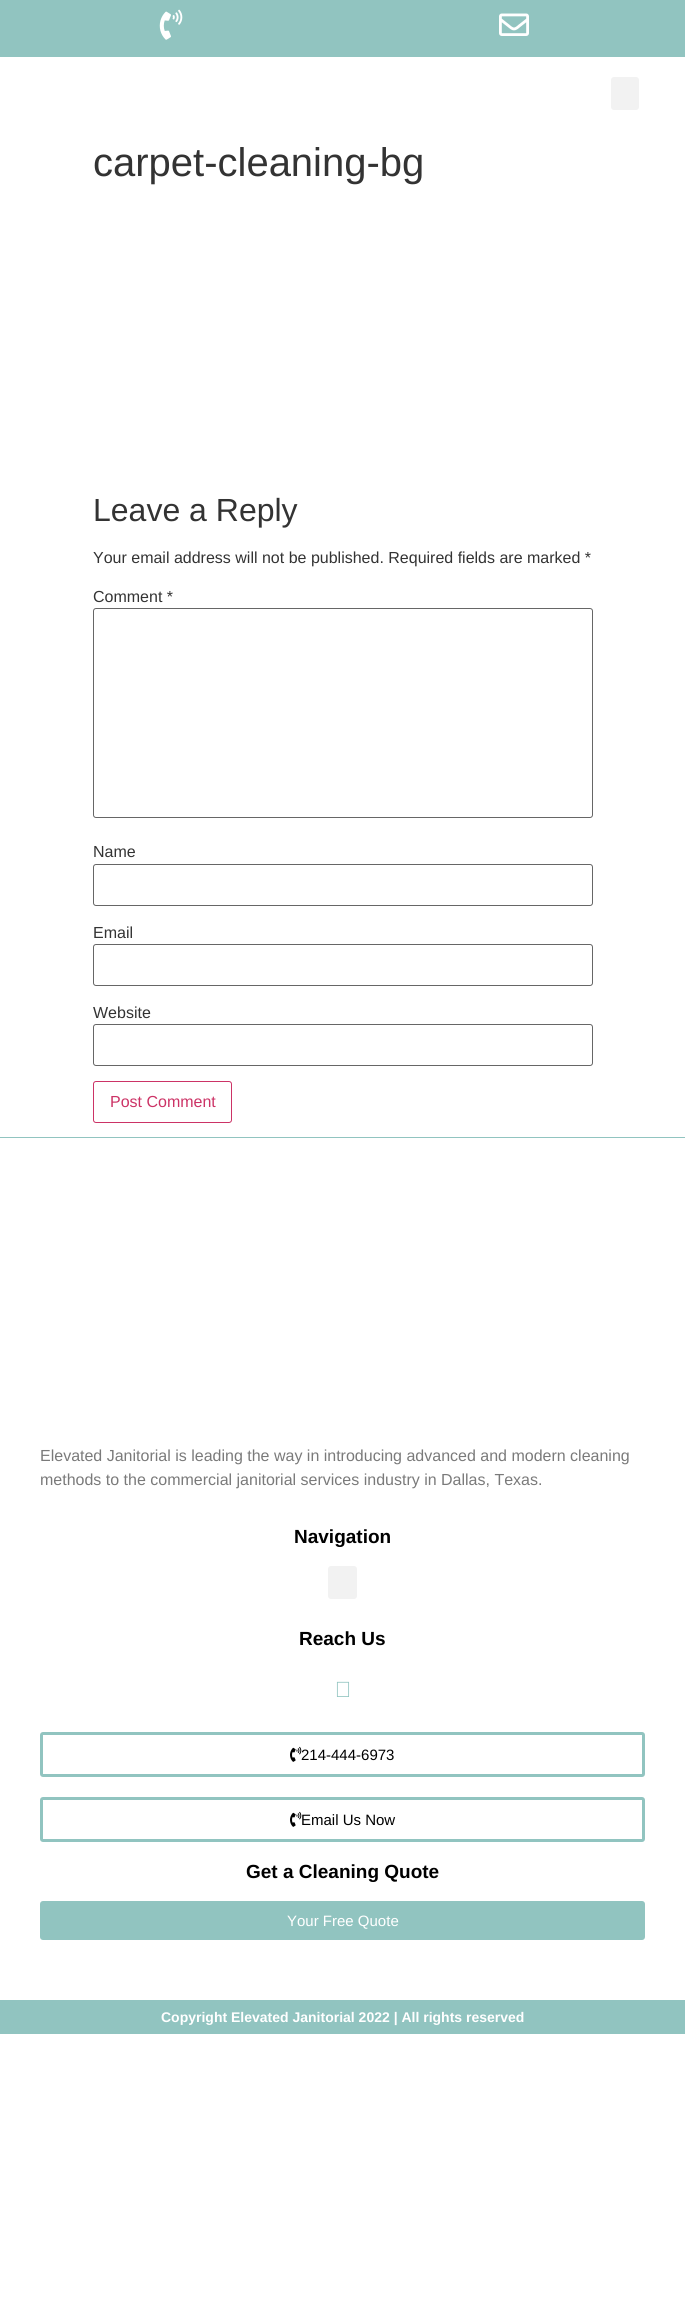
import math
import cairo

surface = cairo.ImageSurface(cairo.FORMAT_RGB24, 685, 2315)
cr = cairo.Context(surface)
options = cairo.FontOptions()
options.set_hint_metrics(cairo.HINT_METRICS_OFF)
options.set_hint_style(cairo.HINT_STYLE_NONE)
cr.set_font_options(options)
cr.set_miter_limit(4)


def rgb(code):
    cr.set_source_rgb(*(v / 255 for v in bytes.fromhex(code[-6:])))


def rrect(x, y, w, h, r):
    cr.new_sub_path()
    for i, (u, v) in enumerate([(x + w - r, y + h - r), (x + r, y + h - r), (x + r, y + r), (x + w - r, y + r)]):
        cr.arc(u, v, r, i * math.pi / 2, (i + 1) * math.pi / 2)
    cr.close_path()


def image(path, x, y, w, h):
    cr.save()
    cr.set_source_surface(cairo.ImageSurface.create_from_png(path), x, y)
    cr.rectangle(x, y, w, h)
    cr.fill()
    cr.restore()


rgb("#ffffff")
cr.paint()
rgb("#91c4c0")
cr.rectangle(0, 0, 685, 57)
cr.fill()
image("img/1.png", 159, 9, 24, 31)
image("img/2.png", 499, 13, 30, 23)
rgb("#f2f2f2")
rrect(611, 77, 28, 33, 3)
cr.fill()
rrect(93.5, 608.5, 499, 209, 2.5)
rgb("#666666")
cr.set_line_width(1)
cr.stroke()
rrect(93.5, 864.5, 499, 41, 2.5)
cr.stroke()
rrect(93.5, 944.5, 499, 41, 2.5)
cr.stroke()
rrect(93.5, 1024.5, 499, 41, 2.5)
cr.stroke()
rrect(93.5, 1081.5, 138, 41, 2.5)
rgb("#cc3366")
cr.stroke()
rgb("#91c4c0")
cr.rectangle(0, 1137, 685, 1)
cr.fill()
rgb("#f2f2f2")
rrect(328, 1566, 29, 33, 3)
cr.fill()
image("img/3.png", 336, 1681, 14, 16)
rrect(41.5, 1733.5, 602, 42, 1.5)
rgb("#91c4c0")
cr.set_line_width(3)
cr.stroke()
image("img/4.png", 290, 1746, 12, 16)
rrect(41.5, 1798.5, 602, 42, 1.5)
cr.stroke()
image("img/4.png", 290, 1811, 12, 16)
rrect(40, 1901, 605, 39, 3)
cr.fill()
cr.rectangle(0, 2000, 685, 34)
cr.fill()
cr.select_font_face("Liberation Sans")
cr.set_font_size(40)
rgb("#333333")
cr.move_to(93, 176)
cr.show_text("carpet-cleaning-bg")
cr.set_font_size(32)
cr.move_to(93, 521)
cr.show_text("Leave a Reply")
cr.set_font_size(16)
for x, y, s in [
    (93, 563, "Your email address will not be published. Required fields are marked *"),
    (93, 602, "Comment *"),
    (93, 857, "Name"),
    (93, 938, "Email"),
    (93, 1018, "Website"),
]:
    cr.move_to(x, y)
    cr.show_text(s)
rgb("#cc3366")
cr.move_to(110, 1107)
cr.show_text("Post Comment")
rgb("#7a7a7a")
cr.move_to(40, 1461)
cr.show_text("Elevated Janitorial is leading the way in introducing advanced and modern cleaning")
cr.move_to(40, 1485)
cr.show_text("methods to the commercial janitorial services industry in Dallas, Texas.")
cr.select_font_face("Liberation Sans", cairo.FONT_SLANT_NORMAL, cairo.FONT_WEIGHT_BOLD)
cr.set_font_size(19)
rgb("#000000")
cr.move_to(294, 1543)
cr.show_text("Navigation")
cr.move_to(299, 1645)
cr.show_text("Reach Us")
cr.select_font_face("Liberation Sans")
cr.set_font_size(15)
cr.move_to(301, 1760)
cr.show_text("214-444-6973")
cr.move_to(301, 1825)
cr.show_text("Email Us Now")
cr.select_font_face("Liberation Sans", cairo.FONT_SLANT_NORMAL, cairo.FONT_WEIGHT_BOLD)
cr.set_font_size(19)
cr.move_to(246, 1878)
cr.show_text("Get a Cleaning Quote")
cr.select_font_face("Liberation Sans")
cr.set_font_size(15)
rgb("#ffffff")
cr.move_to(287, 1926)
cr.show_text("Your Free Quote")
cr.select_font_face("Liberation Sans", cairo.FONT_SLANT_NORMAL, cairo.FONT_WEIGHT_BOLD)
cr.set_font_size(14)
cr.move_to(161, 2022)
cr.show_text("Copyright Elevated Janitorial 2022 | All rights reserved")
surface.write_to_png("page.png")
